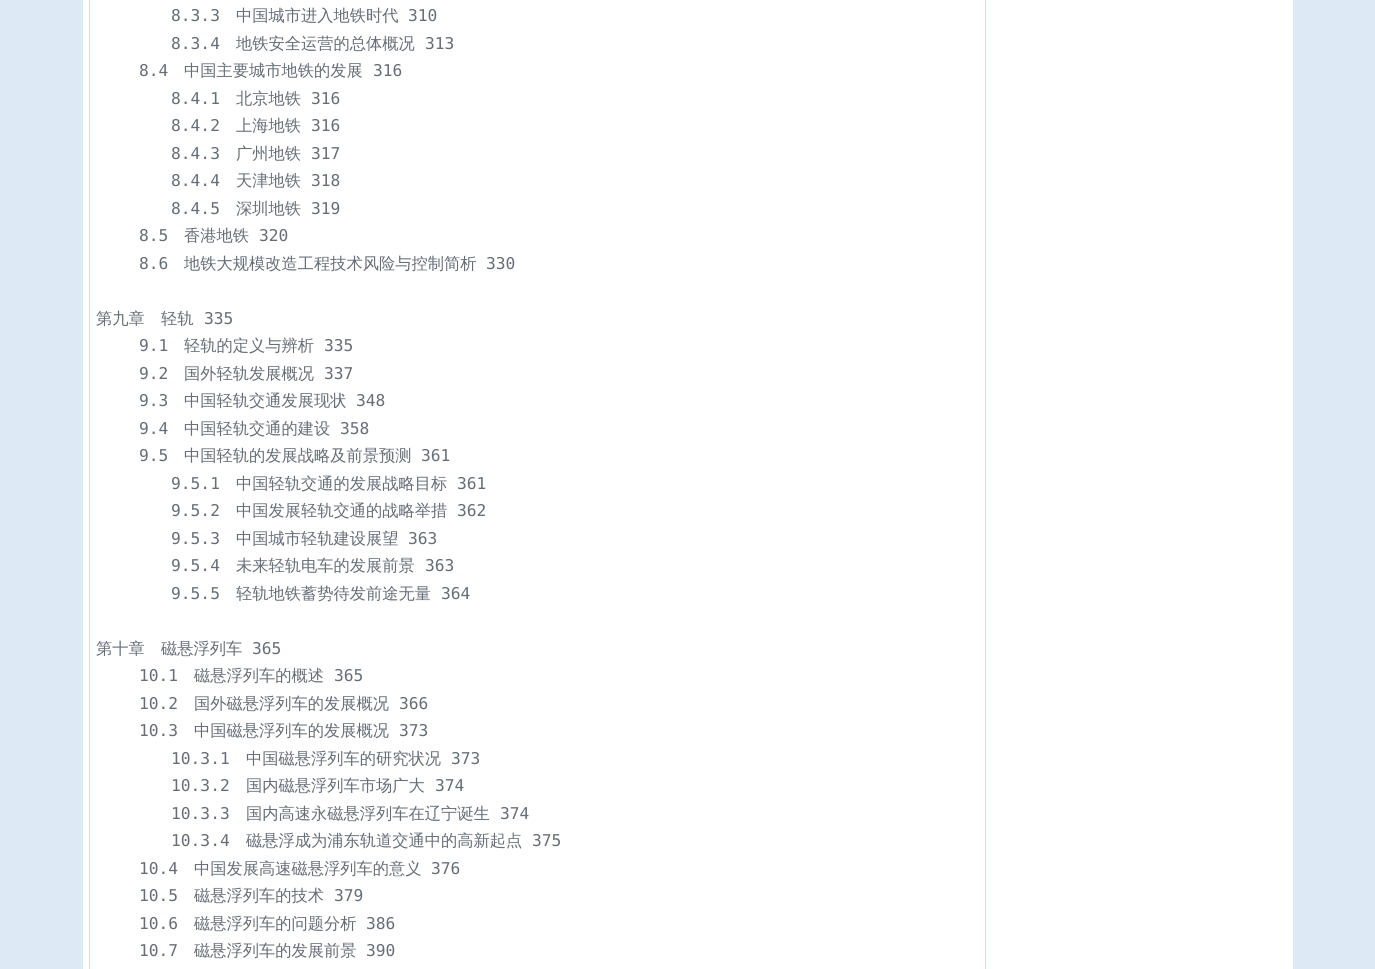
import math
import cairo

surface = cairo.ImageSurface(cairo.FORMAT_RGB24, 1375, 969)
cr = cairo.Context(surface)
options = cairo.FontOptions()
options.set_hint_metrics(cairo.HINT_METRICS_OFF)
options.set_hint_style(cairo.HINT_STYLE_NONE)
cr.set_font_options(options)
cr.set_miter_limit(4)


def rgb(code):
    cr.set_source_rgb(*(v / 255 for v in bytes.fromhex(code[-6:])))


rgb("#dee9f6")
cr.paint()
rgb("#ffffff")
cr.rectangle(83, 0, 1210, 969)
cr.fill()
cr.rectangle(89.5, -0.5, 896, 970)
rgb("#b6e6fb")
cr.set_line_width(1)
cr.stroke()
cr.select_font_face("DejaVu Sans Mono")
cr.set_font_size(16.25)
rgb("#656d77")
cr.move_to(171, 21)
cr.show_text("8.3.3")
cr.select_font_face("WenQuanYi Zen Hei Medium")
cr.move_to(236, 21)
cr.show_text("中国城市进入地铁时代")
cr.select_font_face("DejaVu Sans Mono")
cr.move_to(408, 21)
cr.show_text("310")
cr.move_to(171, 49)
cr.show_text("8.3.4")
cr.select_font_face("WenQuanYi Zen Hei Medium")
cr.move_to(236, 49)
cr.show_text("地铁安全运营的总体概况")
cr.select_font_face("DejaVu Sans Mono")
cr.move_to(425, 49)
cr.show_text("313")
cr.move_to(139, 76)
cr.show_text("8.4")
cr.select_font_face("WenQuanYi Zen Hei Medium")
cr.move_to(184, 76)
cr.show_text("中国主要城市地铁的发展")
cr.select_font_face("DejaVu Sans Mono")
cr.move_to(373, 76)
cr.show_text("316")
cr.move_to(171, 104)
cr.show_text("8.4.1")
cr.select_font_face("WenQuanYi Zen Hei Medium")
cr.move_to(236, 104)
cr.show_text("北京地铁")
cr.select_font_face("DejaVu Sans Mono")
cr.move_to(311, 104)
cr.show_text("316")
cr.move_to(171, 131)
cr.show_text("8.4.2")
cr.select_font_face("WenQuanYi Zen Hei Medium")
cr.move_to(236, 131)
cr.show_text("上海地铁")
cr.select_font_face("DejaVu Sans Mono")
cr.move_to(311, 131)
cr.show_text("316")
cr.move_to(171, 159)
cr.show_text("8.4.3")
cr.select_font_face("WenQuanYi Zen Hei Medium")
cr.move_to(236, 159)
cr.show_text("广州地铁")
cr.select_font_face("DejaVu Sans Mono")
cr.move_to(311, 159)
cr.show_text("317")
cr.move_to(171, 186)
cr.show_text("8.4.4")
cr.select_font_face("WenQuanYi Zen Hei Medium")
cr.move_to(236, 186)
cr.show_text("天津地铁")
cr.select_font_face("DejaVu Sans Mono")
cr.move_to(311, 186)
cr.show_text("318")
cr.move_to(171, 214)
cr.show_text("8.4.5")
cr.select_font_face("WenQuanYi Zen Hei Medium")
cr.move_to(236, 214)
cr.show_text("深圳地铁")
cr.select_font_face("DejaVu Sans Mono")
cr.move_to(311, 214)
cr.show_text("319")
cr.move_to(139, 241)
cr.show_text("8.5")
cr.select_font_face("WenQuanYi Zen Hei Medium")
cr.move_to(184, 241)
cr.show_text("香港地铁")
cr.select_font_face("DejaVu Sans Mono")
cr.move_to(259, 241)
cr.show_text("320")
cr.move_to(139, 269)
cr.show_text("8.6")
cr.select_font_face("WenQuanYi Zen Hei Medium")
cr.move_to(184, 269)
cr.show_text("地铁大规模改造工程技术风险与控制简析")
cr.select_font_face("DejaVu Sans Mono")
cr.move_to(486, 269)
cr.show_text("330")
cr.select_font_face("WenQuanYi Zen Hei Medium")
cr.move_to(96, 324)
cr.show_text("第九章　轻轨")
cr.select_font_face("DejaVu Sans Mono")
cr.move_to(204, 324)
cr.show_text("335")
cr.move_to(139, 351)
cr.show_text("9.1")
cr.select_font_face("WenQuanYi Zen Hei Medium")
cr.move_to(184, 351)
cr.show_text("轻轨的定义与辨析")
cr.select_font_face("DejaVu Sans Mono")
cr.move_to(324, 351)
cr.show_text("335")
cr.move_to(139, 379)
cr.show_text("9.2")
cr.select_font_face("WenQuanYi Zen Hei Medium")
cr.move_to(184, 379)
cr.show_text("国外轻轨发展概况")
cr.select_font_face("DejaVu Sans Mono")
cr.move_to(324, 379)
cr.show_text("337")
cr.move_to(139, 406)
cr.show_text("9.3")
cr.select_font_face("WenQuanYi Zen Hei Medium")
cr.move_to(184, 406)
cr.show_text("中国轻轨交通发展现状")
cr.select_font_face("DejaVu Sans Mono")
cr.move_to(356, 406)
cr.show_text("348")
cr.move_to(139, 434)
cr.show_text("9.4")
cr.select_font_face("WenQuanYi Zen Hei Medium")
cr.move_to(184, 434)
cr.show_text("中国轻轨交通的建设")
cr.select_font_face("DejaVu Sans Mono")
cr.move_to(340, 434)
cr.show_text("358")
cr.move_to(139, 461)
cr.show_text("9.5")
cr.select_font_face("WenQuanYi Zen Hei Medium")
cr.move_to(184, 461)
cr.show_text("中国轻轨的发展战略及前景预测")
cr.select_font_face("DejaVu Sans Mono")
cr.move_to(421, 461)
cr.show_text("361")
cr.move_to(171, 489)
cr.show_text("9.5.1")
cr.select_font_face("WenQuanYi Zen Hei Medium")
cr.move_to(236, 489)
cr.show_text("中国轻轨交通的发展战略目标")
cr.select_font_face("DejaVu Sans Mono")
cr.move_to(457, 489)
cr.show_text("361")
cr.move_to(171, 516)
cr.show_text("9.5.2")
cr.select_font_face("WenQuanYi Zen Hei Medium")
cr.move_to(236, 516)
cr.show_text("中国发展轻轨交通的战略举措")
cr.select_font_face("DejaVu Sans Mono")
cr.move_to(457, 516)
cr.show_text("362")
cr.move_to(171, 544)
cr.show_text("9.5.3")
cr.select_font_face("WenQuanYi Zen Hei Medium")
cr.move_to(236, 544)
cr.show_text("中国城市轻轨建设展望")
cr.select_font_face("DejaVu Sans Mono")
cr.move_to(408, 544)
cr.show_text("363")
cr.move_to(171, 571)
cr.show_text("9.5.4")
cr.select_font_face("WenQuanYi Zen Hei Medium")
cr.move_to(236, 571)
cr.show_text("未来轻轨电车的发展前景")
cr.select_font_face("DejaVu Sans Mono")
cr.move_to(425, 571)
cr.show_text("363")
cr.move_to(171, 599)
cr.show_text("9.5.5")
cr.select_font_face("WenQuanYi Zen Hei Medium")
cr.move_to(236, 599)
cr.show_text("轻轨地铁蓄势待发前途无量")
cr.select_font_face("DejaVu Sans Mono")
cr.move_to(441, 599)
cr.show_text("364")
cr.select_font_face("WenQuanYi Zen Hei Medium")
cr.move_to(96, 654)
cr.show_text("第十章　磁悬浮列车")
cr.select_font_face("DejaVu Sans Mono")
cr.move_to(252, 654)
cr.show_text("365")
cr.move_to(139, 681)
cr.show_text("10.1")
cr.select_font_face("WenQuanYi Zen Hei Medium")
cr.move_to(194, 681)
cr.show_text("磁悬浮列车的概述")
cr.select_font_face("DejaVu Sans Mono")
cr.move_to(334, 681)
cr.show_text("365")
cr.move_to(139, 709)
cr.show_text("10.2")
cr.select_font_face("WenQuanYi Zen Hei Medium")
cr.move_to(194, 709)
cr.show_text("国外磁悬浮列车的发展概况")
cr.select_font_face("DejaVu Sans Mono")
cr.move_to(399, 709)
cr.show_text("366")
cr.move_to(139, 736)
cr.show_text("10.3")
cr.select_font_face("WenQuanYi Zen Hei Medium")
cr.move_to(194, 736)
cr.show_text("中国磁悬浮列车的发展概况")
cr.select_font_face("DejaVu Sans Mono")
cr.move_to(399, 736)
cr.show_text("373")
cr.move_to(171, 764)
cr.show_text("10.3.1")
cr.select_font_face("WenQuanYi Zen Hei Medium")
cr.move_to(246, 764)
cr.show_text("中国磁悬浮列车的研究状况")
cr.select_font_face("DejaVu Sans Mono")
cr.move_to(451, 764)
cr.show_text("373")
cr.move_to(171, 791)
cr.show_text("10.3.2")
cr.select_font_face("WenQuanYi Zen Hei Medium")
cr.move_to(246, 791)
cr.show_text("国内磁悬浮列车市场广大")
cr.select_font_face("DejaVu Sans Mono")
cr.move_to(435, 791)
cr.show_text("374")
cr.move_to(171, 819)
cr.show_text("10.3.3")
cr.select_font_face("WenQuanYi Zen Hei Medium")
cr.move_to(246, 819)
cr.show_text("国内高速永磁悬浮列车在辽宁诞生")
cr.select_font_face("DejaVu Sans Mono")
cr.move_to(500, 819)
cr.show_text("374")
cr.move_to(171, 846)
cr.show_text("10.3.4")
cr.select_font_face("WenQuanYi Zen Hei Medium")
cr.move_to(246, 846)
cr.show_text("磁悬浮成为浦东轨道交通中的高新起点")
cr.select_font_face("DejaVu Sans Mono")
cr.move_to(532, 846)
cr.show_text("375")
cr.move_to(139, 874)
cr.show_text("10.4")
cr.select_font_face("WenQuanYi Zen Hei Medium")
cr.move_to(194, 874)
cr.show_text("中国发展高速磁悬浮列车的意义")
cr.select_font_face("DejaVu Sans Mono")
cr.move_to(431, 874)
cr.show_text("376")
cr.move_to(139, 901)
cr.show_text("10.5")
cr.select_font_face("WenQuanYi Zen Hei Medium")
cr.move_to(194, 901)
cr.show_text("磁悬浮列车的技术")
cr.select_font_face("DejaVu Sans Mono")
cr.move_to(334, 901)
cr.show_text("379")
cr.move_to(139, 929)
cr.show_text("10.6")
cr.select_font_face("WenQuanYi Zen Hei Medium")
cr.move_to(194, 929)
cr.show_text("磁悬浮列车的问题分析")
cr.select_font_face("DejaVu Sans Mono")
cr.move_to(366, 929)
cr.show_text("386")
cr.move_to(139, 956)
cr.show_text("10.7")
cr.select_font_face("WenQuanYi Zen Hei Medium")
cr.move_to(194, 956)
cr.show_text("磁悬浮列车的发展前景")
cr.select_font_face("DejaVu Sans Mono")
cr.move_to(366, 956)
cr.show_text("390")
surface.write_to_png("page.png")
